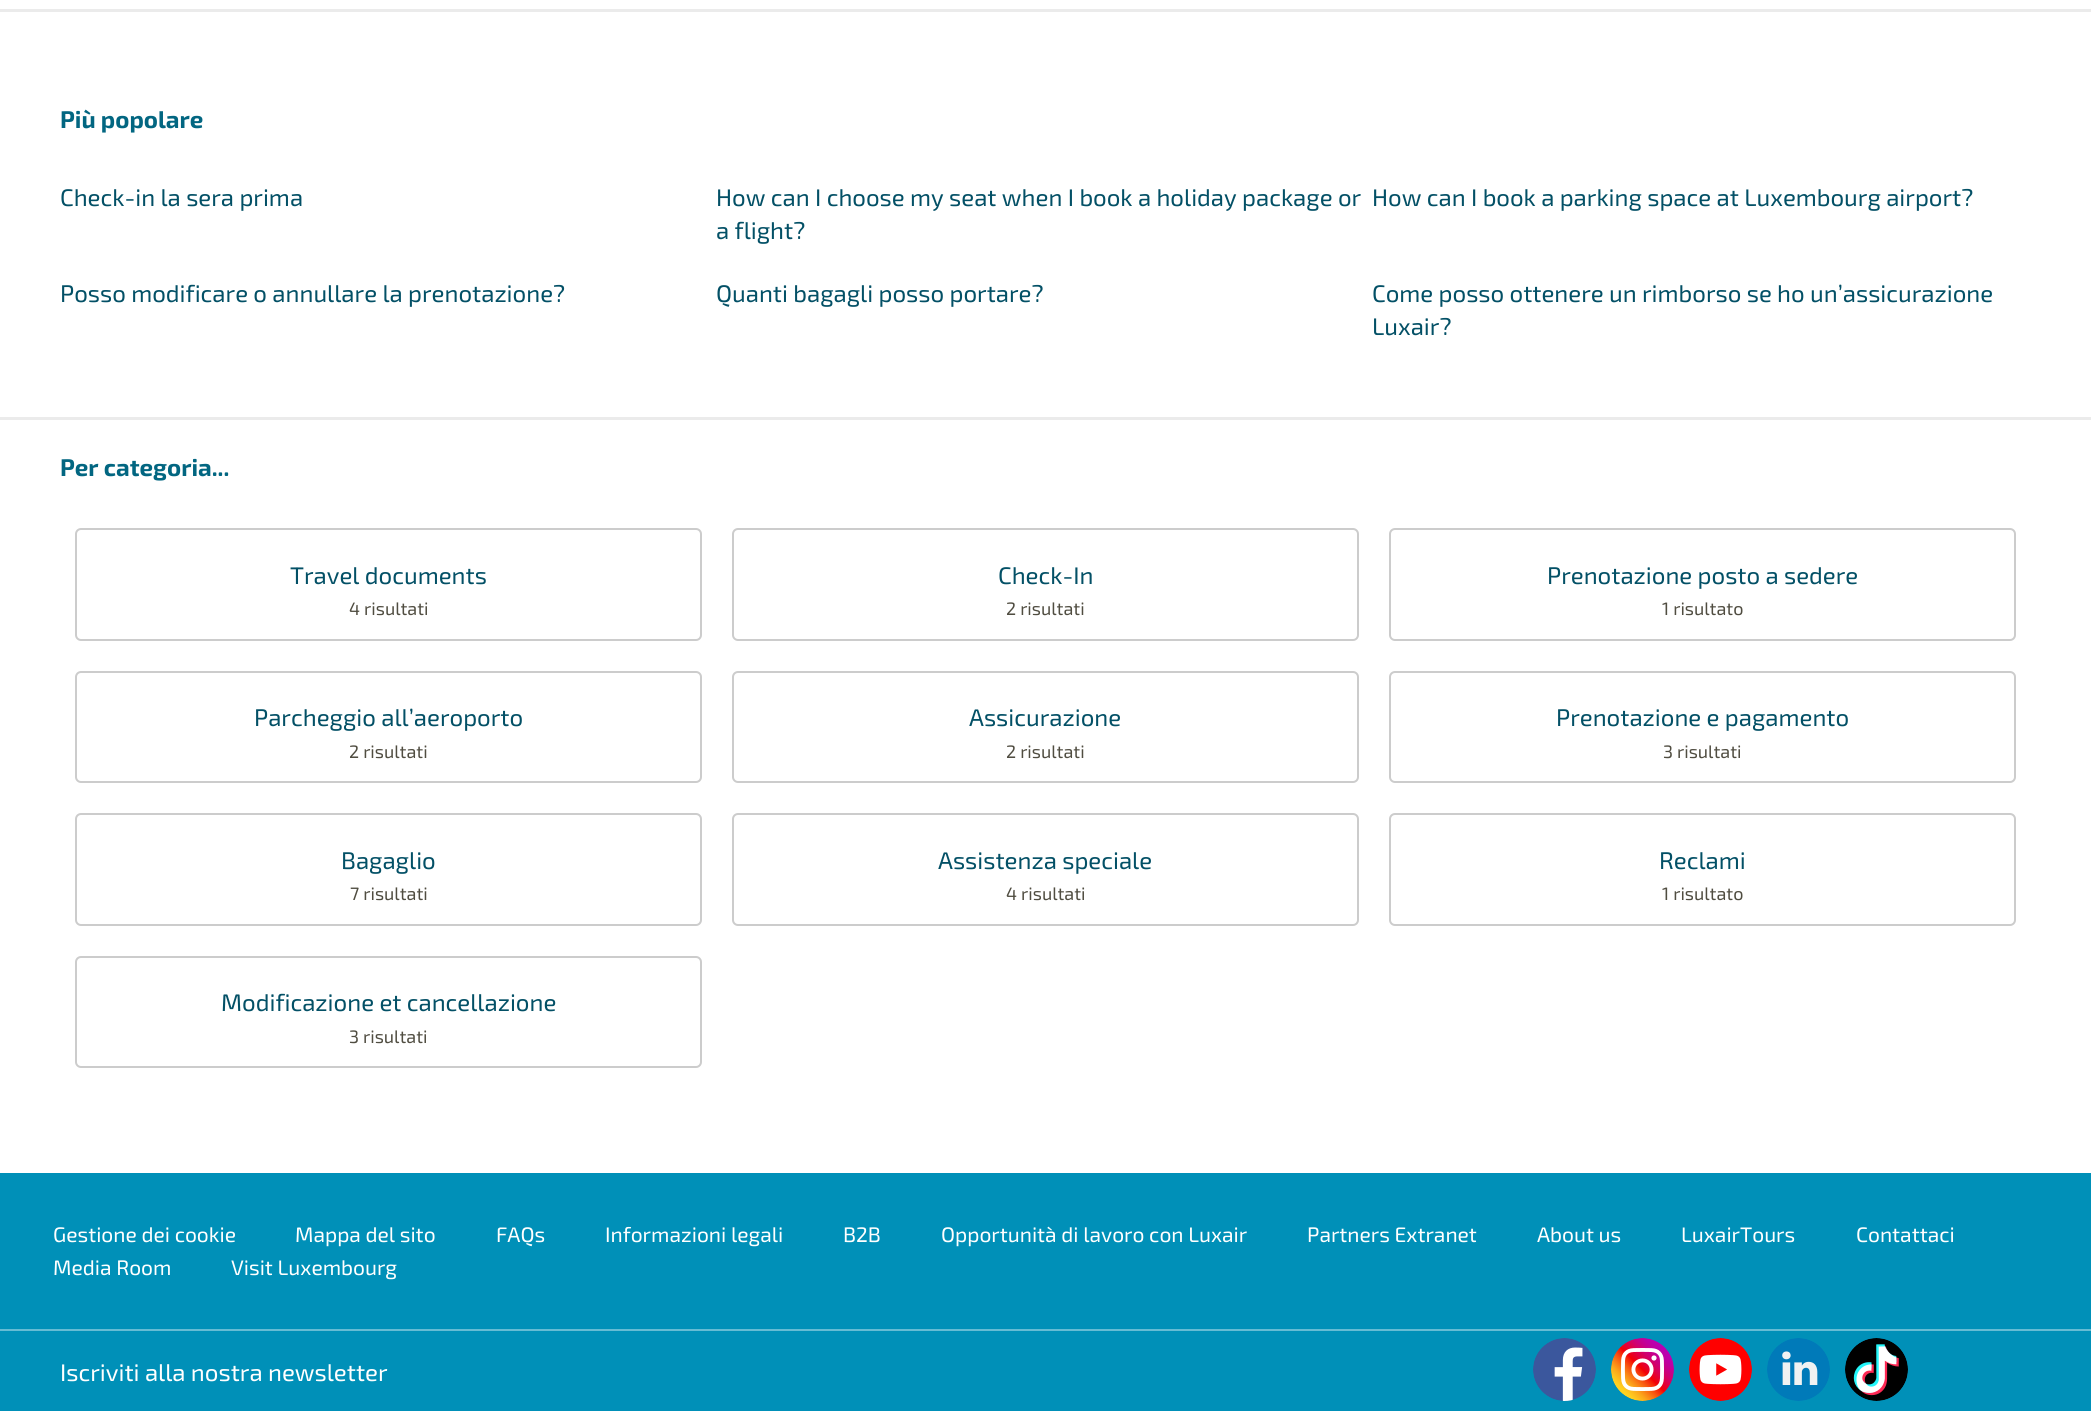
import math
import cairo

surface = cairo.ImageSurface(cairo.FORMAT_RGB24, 2091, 1411)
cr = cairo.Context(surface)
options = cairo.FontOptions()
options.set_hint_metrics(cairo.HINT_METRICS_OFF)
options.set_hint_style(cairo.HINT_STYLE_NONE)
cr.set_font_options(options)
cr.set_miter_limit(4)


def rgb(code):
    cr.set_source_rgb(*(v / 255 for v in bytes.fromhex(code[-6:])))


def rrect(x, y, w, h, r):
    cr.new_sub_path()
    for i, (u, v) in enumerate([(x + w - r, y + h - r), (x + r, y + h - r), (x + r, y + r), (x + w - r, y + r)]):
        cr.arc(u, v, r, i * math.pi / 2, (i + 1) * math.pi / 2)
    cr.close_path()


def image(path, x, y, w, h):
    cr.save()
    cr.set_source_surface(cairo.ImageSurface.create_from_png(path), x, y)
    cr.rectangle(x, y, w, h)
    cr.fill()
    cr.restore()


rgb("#ffffff")
cr.paint()
rgb("#ebebeb")
cr.rectangle(0, 9, 2091, 3)
cr.fill()
cr.rectangle(0, 417, 2091, 3)
cr.fill()
rrect(76, 529, 625, 111, 5)
rgb("#cccccc")
cr.stroke()
rrect(733, 529, 625, 111, 5)
cr.stroke()
rrect(1390, 529, 625, 111, 5)
cr.stroke()
rrect(76, 672, 625, 110, 5)
cr.stroke()
rrect(733, 672, 625, 110, 5)
cr.stroke()
rrect(1390, 672, 625, 110, 5)
cr.stroke()
rrect(76, 814, 625, 111, 5)
cr.stroke()
rrect(733, 814, 625, 111, 5)
cr.stroke()
rrect(1390, 814, 625, 111, 5)
cr.stroke()
rrect(76, 957, 625, 110, 5)
cr.stroke()
rgb("#0090b8")
cr.rectangle(0, 1173, 2091, 238)
cr.fill()
rgb("#66bcd4")
cr.rectangle(0, 1329, 2091, 2)
cr.fill()
image("img/1.png", 1533, 1338, 63, 63)
image("img/2.png", 1611, 1338, 63, 63)
image("img/3.png", 1689, 1338, 63, 63)
image("img/4.png", 1767, 1338, 63, 63)
image("img/5.png", 1845, 1338, 63, 63)
cr.select_font_face("Exo 2", cairo.FONT_SLANT_NORMAL, cairo.FONT_WEIGHT_BOLD)
cr.set_font_size(24)
rgb("#026681")
cr.move_to(60, 128)
cr.show_text("Più popolare")
cr.select_font_face("Exo 2")
rgb("#035066")
for x, y, s in [
    (60, 206, "Check-in la sera prima"),
    (716, 206, "How can I choose my seat when I book a holiday package or"),
    (716, 239, "a flight?"),
    (1372, 206, "How can I book a parking space at Luxembourg airport?"),
    (60, 302, "Posso modificare o annullare la prenotazione?"),
    (716, 302, "Quanti bagagli posso portare?"),
    (1372, 302, "Come posso ottenere un rimborso se ho un’assicurazione"),
    (1372, 335, "Luxair?"),
]:
    cr.move_to(x, y)
    cr.show_text(s)
cr.select_font_face("Exo 2", cairo.FONT_SLANT_NORMAL, cairo.FONT_WEIGHT_BOLD)
rgb("#026681")
cr.move_to(60, 476)
cr.show_text("Per categoria...")
cr.select_font_face("Exo 2")
rgb("#035066")
cr.move_to(290, 584)
cr.show_text("Travel documents")
cr.set_font_size(18)
rgb("#504d41")
cr.move_to(349, 615)
cr.show_text("4 risultati")
cr.set_font_size(24)
rgb("#035066")
cr.move_to(998, 584)
cr.show_text("Check-In")
cr.set_font_size(18)
rgb("#504d41")
cr.move_to(1006, 615)
cr.show_text("2 risultati")
cr.set_font_size(24)
rgb("#035066")
cr.move_to(1547, 584)
cr.show_text("Prenotazione posto a sedere")
cr.set_font_size(18)
rgb("#504d41")
cr.move_to(1662, 615)
cr.show_text("1 risultato")
cr.set_font_size(24)
rgb("#035066")
cr.move_to(254, 726)
cr.show_text("Parcheggio all’aeroporto")
cr.set_font_size(18)
rgb("#504d41")
cr.move_to(349, 758)
cr.show_text("2 risultati")
cr.set_font_size(24)
rgb("#035066")
cr.move_to(969, 726)
cr.show_text("Assicurazione")
cr.set_font_size(18)
rgb("#504d41")
cr.move_to(1006, 758)
cr.show_text("2 risultati")
cr.set_font_size(24)
rgb("#035066")
cr.move_to(1556, 726)
cr.show_text("Prenotazione e pagamento")
cr.set_font_size(18)
rgb("#504d41")
cr.move_to(1663, 758)
cr.show_text("3 risultati")
cr.set_font_size(24)
rgb("#035066")
cr.move_to(341, 869)
cr.show_text("Bagaglio")
cr.set_font_size(18)
rgb("#504d41")
cr.move_to(350, 900)
cr.show_text("7 risultati")
cr.set_font_size(24)
rgb("#035066")
cr.move_to(938, 869)
cr.show_text("Assistenza speciale")
cr.set_font_size(18)
rgb("#504d41")
cr.move_to(1006, 900)
cr.show_text("4 risultati")
cr.set_font_size(24)
rgb("#035066")
cr.move_to(1659, 869)
cr.show_text("Reclami")
cr.set_font_size(18)
rgb("#504d41")
cr.move_to(1662, 900)
cr.show_text("1 risultato")
cr.set_font_size(24)
rgb("#035066")
cr.move_to(221, 1011)
cr.show_text("Modificazione et cancellazione")
cr.set_font_size(18)
rgb("#504d41")
cr.move_to(349, 1043)
cr.show_text("3 risultati")
cr.set_font_size(21)
rgb("#ffffff")
for x, y, s in [
    (53, 1242, "Gestione dei cookie"),
    (295, 1242, "Mappa del sito"),
    (496, 1242, "FAQs"),
    (605, 1242, "Informazioni legali"),
    (843, 1242, "B2B"),
    (941, 1242, "Opportunità di lavoro con Luxair"),
    (1307, 1242, "Partners Extranet"),
    (1537, 1242, "About us"),
    (1681, 1242, "LuxairTours"),
    (1856, 1242, "Contattaci"),
    (53, 1275, "Media Room"),
    (231, 1275, "Visit Luxembourg"),
]:
    cr.move_to(x, y)
    cr.show_text(s)
cr.set_font_size(24)
cr.move_to(60, 1381)
cr.show_text("Iscriviti alla nostra newsletter")
surface.write_to_png("page.png")
